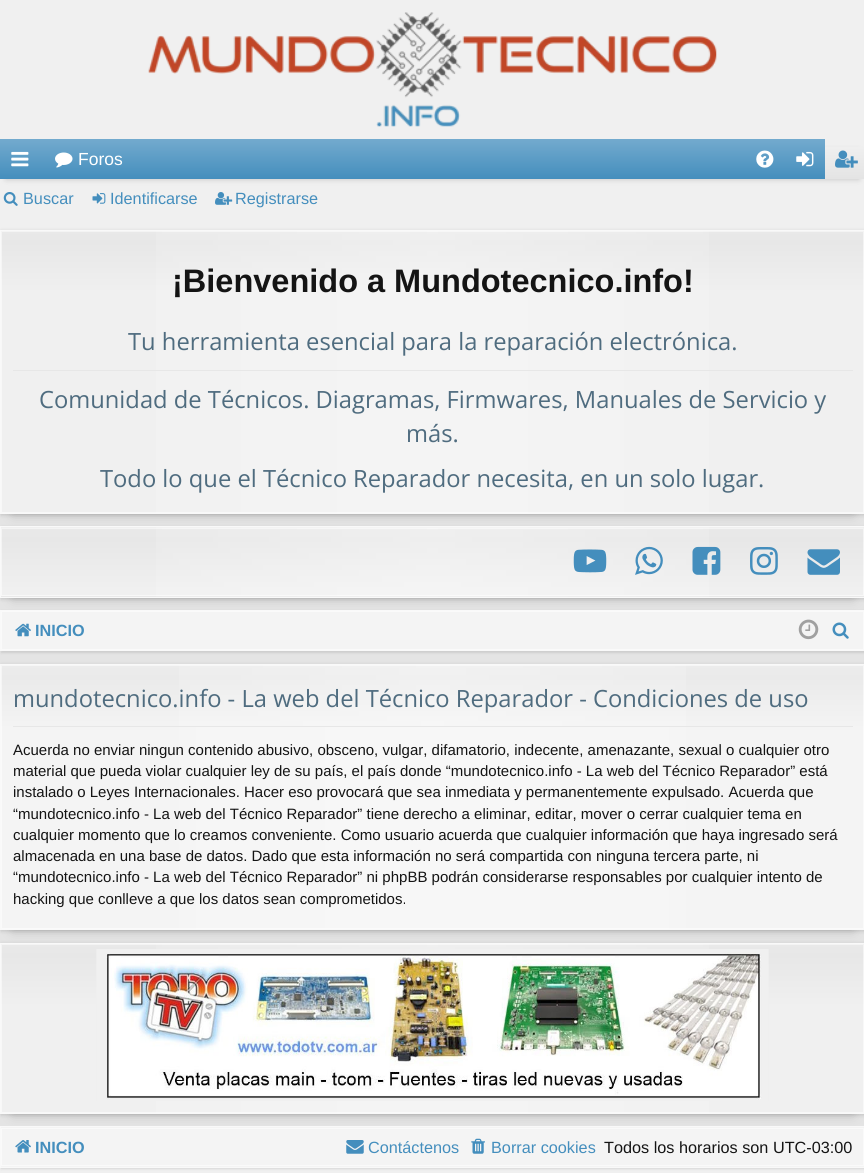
import math
import cairo

surface = cairo.ImageSurface(cairo.FORMAT_RGB24, 864, 1173)
cr = cairo.Context(surface)
options = cairo.FontOptions()
options.set_hint_metrics(cairo.HINT_METRICS_OFF)
options.set_hint_style(cairo.HINT_STYLE_NONE)
cr.set_font_options(options)
cr.set_miter_limit(4)


def rgb(code):
    cr.set_source_rgb(*(v / 255 for v in bytes.fromhex(code[-6:])))


def rrect(x, y, w, h, r):
    cr.new_sub_path()
    for i, (u, v) in enumerate([(x + w - r, y + h - r), (x + r, y + h - r), (x + r, y + r), (x + w - r, y + r)]):
        cr.arc(u, v, r, i * math.pi / 2, (i + 1) * math.pi / 2)
    cr.close_path()


def soft_shadow(x, y, w, h, r, blur, alpha):
    cr.push_group_with_content(cairo.CONTENT_ALPHA)
    cr.set_operator(cairo.OPERATOR_SOURCE)
    for i in range(15, -16, -2):
        e = blur * i / 6
        if min(w, h) + 2 * e > 0:
            cr.set_source_rgba(0, 0, 0, alpha * math.erfc((i - 1) / 8.5) / 2)
            rrect(x - e, y - e, w + 2 * e, h + 2 * e, max(0, min(r + e + blur * .6, min(w, h) / 2 + e)))
            cr.fill()
    cr.mask(cr.pop_group())


def image(path, x, y, w, h):
    cr.save()
    cr.set_source_surface(cairo.ImageSurface.create_from_png(path), x, y)
    cr.rectangle(x, y, w, h)
    cr.fill()
    cr.restore()


rgb("#f0f0f0")
cr.paint()
image("img/1.png", 148, 12, 569, 115)
rgb("#000000")
soft_shadow(6, 151, 853, 28, 0, 3, 0.2)
gradient = cairo.LinearGradient(433, 139, 433, 179)
gradient.add_color_stop_rgba(0, 0.451, 0.667, 0.808, 1)
gradient.add_color_stop_rgba(1, 0.267, 0.557, 0.741, 1)
cr.set_source(gradient)
cr.rectangle(0, 139, 825, 40)
cr.fill()
image("img/2.png", 11, 151, 18, 16)
image("img/3.png", 55, 152, 18, 16)
image("img/4.png", 756, 150, 18, 18)
image("img/5.png", 796, 151, 18, 16)
gradient = cairo.LinearGradient(845, 139, 845, 179)
gradient.add_color_stop_rgba(0, 0.949, 0.949, 0.949, 1)
gradient.add_color_stop_rgba(1, 0.894, 0.894, 0.894, 1)
cr.set_source(gradient)
cr.rectangle(825, 147, 39, 32)
cr.fill()
image("img/6.png", 835, 150, 23, 18)
image("img/7.png", 3, 192, 15, 14)
image("img/8.png", 92, 193, 14, 11)
image("img/9.png", 215, 192, 18, 13)
rgb("#e4e4e4")
cr.rectangle(0, 514, 864, 612)
cr.fill()
rgb("#000000")
soft_shadow(13, 255, 840, 259, 0, 6, 0.2)
soft_shadow(1, 231, 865, 284, 0, 2, 0.15)
gradient = cairo.LinearGradient(433, 231, 433, 513)
gradient.add_color_stop_rgba(0, 0.914, 0.914, 0.914, 1)
gradient.add_color_stop_rgba(0.04, 0.906, 0.906, 0.906, 1)
gradient.add_color_stop_rgba(0.22, 0.941, 0.941, 0.941, 1)
cr.set_source(gradient)
cr.rectangle(1, 231, 863, 282)
cr.fill()
gradient = cairo.LinearGradient(1.2, 372, 864, 372)
gradient.add_color_stop_rgba(0, 1, 1, 1, 0)
gradient.add_color_stop_rgba(0.5, 1, 1, 1, 0.3)
gradient.add_color_stop_rgba(1, 1, 1, 1, 0)
cr.set_source(gradient)
cr.rectangle(156, 231, 553, 282)
cr.fill()
cr.rectangle(1.5, 231.5, 862, 281)
cr.set_source_rgba(1, 1, 1, 0.5)
cr.set_line_width(1)
cr.stroke()
cr.rectangle(0.5, 230.5, 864, 283)
rgb("#f9f9f9")
cr.stroke()
rgb("#e7e7e7")
cr.rectangle(13, 370, 840, 1)
cr.fill()
rgb("#000000")
soft_shadow(13, 551, 840, 47, 0, 6, 0.2)
soft_shadow(1, 528, 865, 71, 0, 2, 0.15)
rgb("#f0f0f0")
cr.rectangle(1, 527, 863, 1)
cr.fill()
gradient = cairo.LinearGradient(433, 527, 433, 596)
gradient.add_color_stop_rgba(0, 0.914, 0.914, 0.914, 1)
gradient.add_color_stop_rgba(0.18, 0.906, 0.906, 0.906, 1)
gradient.add_color_stop_rgba(0.91, 0.941, 0.941, 0.941, 1)
cr.set_source(gradient)
cr.rectangle(1, 528, 863, 68)
cr.fill()
gradient = cairo.LinearGradient(433, 596, 433, 665)
gradient.add_color_stop_rgba(0, 0.914, 0.914, 0.914, 1)
gradient.add_color_stop_rgba(0.18, 0.906, 0.906, 0.906, 1)
gradient.add_color_stop_rgba(0.91, 0.941, 0.941, 0.941, 1)
cr.set_source(gradient)
cr.rectangle(0, 596, 864, 1)
cr.fill()
gradient = cairo.LinearGradient(1.2, 562, 864, 562)
gradient.add_color_stop_rgba(0, 1, 1, 1, 0)
gradient.add_color_stop_rgba(0.5, 1, 1, 1, 0.3)
gradient.add_color_stop_rgba(1, 1, 1, 1, 0)
cr.set_source(gradient)
cr.rectangle(156, 527, 553, 70)
cr.fill()
cr.rectangle(1.5, 528.5, 862, 67)
cr.set_source_rgba(1, 1, 1, 0.5)
cr.stroke()
cr.rectangle(0.5, 526.5, 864, 71)
rgb("#f9f9f9")
cr.stroke()
image("img/10.png", 573, 549, 34, 24)
image("img/11.png", 635, 546, 28, 29)
image("img/12.png", 692, 546, 29, 29)
image("img/13.png", 750, 547, 28, 28)
image("img/14.png", 807, 549, 33, 26)
rgb("#000000")
soft_shadow(1, 611, 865, 42, 0, 1, 0.1)
rgb("#f4f4f4")
cr.rectangle(1.5, 611.5, 862, 38)
cr.fill_preserve()
rgb("#fafafa")
cr.stroke()
cr.rectangle(0.5, 610.5, 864, 40)
rgb("#f9f9f9")
cr.stroke()
image("img/15.png", 15, 623, 16, 14)
image("img/16.png", 798, 619, 21, 21)
image("img/17.png", 832, 622, 17, 17)
rgb("#000000")
soft_shadow(13, 689, 840, 241, 0, 6, 0.2)
soft_shadow(1, 665, 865, 266, 0, 2, 0.15)
gradient = cairo.LinearGradient(433, 665, 433, 929)
gradient.add_color_stop_rgba(0, 0.925, 0.925, 0.925, 1)
gradient.add_color_stop_rgba(0.05, 0.918, 0.918, 0.918, 1)
gradient.add_color_stop_rgba(0.24, 0.957, 0.957, 0.957, 1)
cr.set_source(gradient)
cr.rectangle(1, 665, 863, 264)
cr.fill()
gradient = cairo.LinearGradient(1.2, 797, 864, 797)
gradient.add_color_stop_rgba(0, 1, 1, 1, 0)
gradient.add_color_stop_rgba(0.5, 1, 1, 1, 0.3)
gradient.add_color_stop_rgba(1, 1, 1, 1, 0)
cr.set_source(gradient)
cr.rectangle(179, 665, 507, 264)
cr.fill()
cr.rectangle(1.5, 665.5, 862, 263)
cr.set_source_rgba(1, 1, 1, 0.5)
cr.stroke()
cr.rectangle(0.5, 664.5, 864, 265)
rgb("#f9f9f9")
cr.stroke()
rgb("#e7e7e7")
cr.rectangle(13, 726, 840, 1)
cr.fill()
rgb("#000000")
soft_shadow(13, 968, 840, 146, 0, 6, 0.2)
soft_shadow(1, 944, 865, 171, 0, 2, 0.15)
gradient = cairo.LinearGradient(433, 944, 433, 1113)
gradient.add_color_stop_rgba(0, 0.914, 0.914, 0.914, 1)
gradient.add_color_stop_rgba(0.07, 0.906, 0.906, 0.906, 1)
gradient.add_color_stop_rgba(0.37, 0.941, 0.941, 0.941, 1)
cr.set_source(gradient)
cr.rectangle(1, 944, 863, 169)
cr.fill()
gradient = cairo.LinearGradient(1.2, 1028, 864, 1028)
gradient.add_color_stop_rgba(0, 1, 1, 1, 0)
gradient.add_color_stop_rgba(0.5, 1, 1, 1, 0.3)
gradient.add_color_stop_rgba(1, 1, 1, 1, 0)
cr.set_source(gradient)
cr.rectangle(156, 944, 553, 169)
cr.fill()
cr.rectangle(1.5, 944.5, 862, 168)
cr.set_source_rgba(1, 1, 1, 0.5)
cr.stroke()
cr.rectangle(0.5, 943.5, 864, 170)
rgb("#f9f9f9")
cr.stroke()
image("img/18.png", 96, 949, 673, 152)
rgb("#000000")
soft_shadow(1, 1128, 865, 41, 0, 1, 0.1)
rgb("#f4f4f4")
cr.rectangle(1, 1127, 863, 40)
cr.fill()
cr.rectangle(1.5, 1128.5, 862, 37)
rgb("#fafafa")
cr.stroke()
cr.rectangle(0.5, 1126.5, 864, 41)
rgb("#f9f9f9")
cr.stroke()
image("img/19.png", 15, 1140, 16, 13)
image("img/20.png", 346, 1140, 18, 14)
image("img/21.png", 471, 1138, 14, 16)
cr.select_font_face("Liberation Sans")
cr.set_font_size(17.5)
rgb("#ffffff")
cr.move_to(78, 165)
cr.show_text("Foros")
cr.set_font_size(16.25)
rgb("#448ebd")
for x, y, s in [
    (23, 204, "Buscar"),
    (110, 204, "Identificarse"),
    (235, 204, "Registrarse"),
]:
    cr.move_to(x, y)
    cr.show_text(s)
cr.select_font_face("Liberation Sans", cairo.FONT_SLANT_NORMAL, cairo.FONT_WEIGHT_BOLD)
cr.set_font_size(32.5)
rgb("#141414")
cr.move_to(172, 292)
cr.show_text("¡Bienvenido a Mundotecnico.info!")
cr.select_font_face("Open Sans")
cr.set_font_size(23.75)
rgb("#4f6c7f")
for x, y, s in [
    (128, 350, "Tu herramienta esencial para la reparación electrónica."),
    (39, 408, "Comunidad de Técnicos. Diagramas, Firmwares, Manuales de Servicio y"),
    (406, 442, "más."),
    (100, 487, "Todo lo que el Técnico Reparador necesita, en un solo lugar."),
]:
    cr.move_to(x, y)
    cr.show_text(s)
cr.select_font_face("Liberation Sans", cairo.FONT_SLANT_NORMAL, cairo.FONT_WEIGHT_BOLD)
cr.set_font_size(16.25)
rgb("#448ebd")
cr.move_to(35, 636)
cr.show_text("INICIO")
cr.select_font_face("Open Sans")
cr.set_font_size(23.75)
rgb("#4f6c7f")
cr.move_to(13, 707)
cr.show_text("mundotecnico.info - La web del Técnico Reparador - Condiciones de uso")
cr.select_font_face("Liberation Sans")
cr.set_font_size(15)
rgb("#141414")
for x, y, s in [
    (13, 755, "Acuerda no enviar ningun contenido abusivo, obsceno, vulgar, difamatorio, indecente, amenazante, sexual o cualquier otro"),
    (13, 776, "material que pueda violar cualquier ley de su país, el país donde “mundotecnico.info - La web del Técnico Reparador” está"),
    (13, 797, "instalado o Leyes Internacionales. Hacer eso provocará que sea inmediata y permanentemente expulsado. Acuerda que"),
    (13, 819, "“mundotecnico.info - La web del Técnico Reparador” tiene derecho a eliminar, editar, mover o cerrar cualquier tema en"),
    (13, 840, "cualquier momento que lo creamos conveniente. Como usuario acuerda que cualquier información que haya ingresado será"),
    (13, 861, "almacenada en una base de datos. Dado que esta información no será compartida con ninguna tercera parte, ni"),
    (13, 882, "“mundotecnico.info - La web del Técnico Reparador” ni phpBB podrán considerarse responsables por cualquier intento de"),
    (13, 904, "hacking que conlleve a que los datos sean comprometidos."),
]:
    cr.move_to(x, y)
    cr.show_text(s)
cr.select_font_face("Liberation Sans", cairo.FONT_SLANT_NORMAL, cairo.FONT_WEIGHT_BOLD)
cr.set_font_size(16.25)
rgb("#448ebd")
cr.move_to(35, 1153)
cr.show_text("INICIO")
cr.select_font_face("Liberation Sans")
cr.move_to(368, 1153)
cr.show_text("Contáctenos")
cr.move_to(491, 1153)
cr.show_text("Borrar cookies")
rgb("#141414")
cr.move_to(604, 1153)
cr.show_text("Todos los horarios son UTC-03:00")
surface.write_to_png("page.png")
